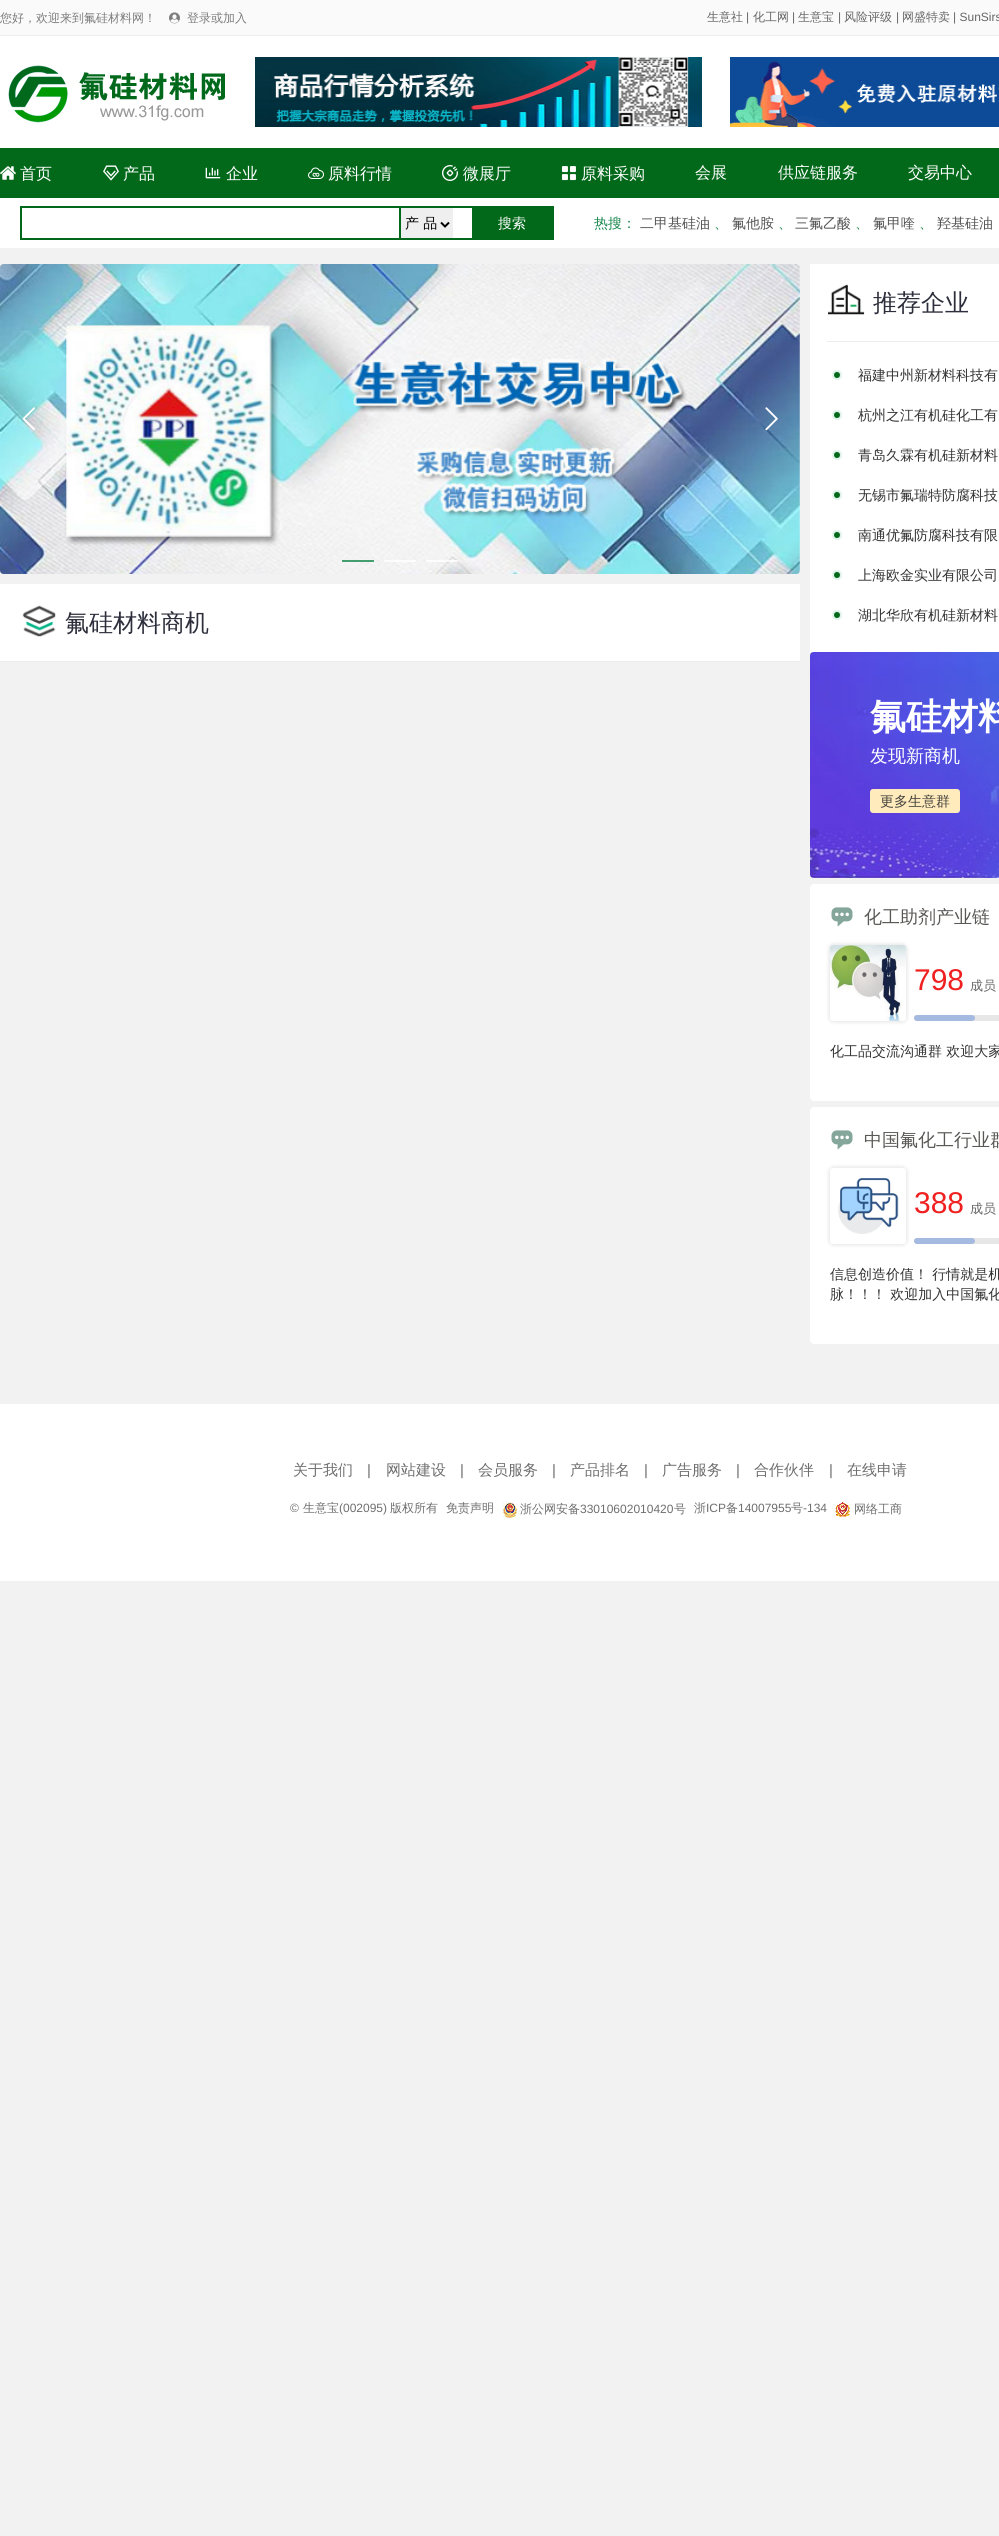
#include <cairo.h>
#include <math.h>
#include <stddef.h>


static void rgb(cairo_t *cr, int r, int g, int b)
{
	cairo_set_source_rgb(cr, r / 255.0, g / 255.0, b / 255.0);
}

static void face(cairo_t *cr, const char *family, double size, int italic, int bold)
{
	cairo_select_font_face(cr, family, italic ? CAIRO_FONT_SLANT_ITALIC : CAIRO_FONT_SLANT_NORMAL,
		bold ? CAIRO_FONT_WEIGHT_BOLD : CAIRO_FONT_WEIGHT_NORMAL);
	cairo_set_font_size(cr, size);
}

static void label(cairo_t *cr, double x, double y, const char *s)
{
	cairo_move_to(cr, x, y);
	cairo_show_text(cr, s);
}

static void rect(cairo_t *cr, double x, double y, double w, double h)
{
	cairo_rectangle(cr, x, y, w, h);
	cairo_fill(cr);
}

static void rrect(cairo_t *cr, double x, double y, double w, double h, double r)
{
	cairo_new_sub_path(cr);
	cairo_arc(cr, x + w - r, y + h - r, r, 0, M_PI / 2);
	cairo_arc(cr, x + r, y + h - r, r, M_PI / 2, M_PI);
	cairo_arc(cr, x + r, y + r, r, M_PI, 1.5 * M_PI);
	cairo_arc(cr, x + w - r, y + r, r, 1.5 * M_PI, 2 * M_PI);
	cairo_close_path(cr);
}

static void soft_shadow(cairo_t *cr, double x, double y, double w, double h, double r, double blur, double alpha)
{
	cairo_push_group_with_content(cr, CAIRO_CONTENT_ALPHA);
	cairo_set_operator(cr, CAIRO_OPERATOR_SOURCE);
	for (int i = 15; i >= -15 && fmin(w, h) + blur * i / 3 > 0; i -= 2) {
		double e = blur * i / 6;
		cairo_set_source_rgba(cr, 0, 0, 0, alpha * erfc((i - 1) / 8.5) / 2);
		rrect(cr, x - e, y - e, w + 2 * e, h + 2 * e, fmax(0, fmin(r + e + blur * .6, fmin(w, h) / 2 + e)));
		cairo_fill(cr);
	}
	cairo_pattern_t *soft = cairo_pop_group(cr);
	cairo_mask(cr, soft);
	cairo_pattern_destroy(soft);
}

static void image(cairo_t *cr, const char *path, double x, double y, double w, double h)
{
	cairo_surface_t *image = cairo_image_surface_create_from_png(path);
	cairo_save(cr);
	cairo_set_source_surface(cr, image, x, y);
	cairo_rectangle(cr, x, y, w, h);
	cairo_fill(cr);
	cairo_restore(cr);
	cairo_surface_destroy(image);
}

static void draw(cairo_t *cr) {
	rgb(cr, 242, 242, 242);
	cairo_paint(cr);
	rgb(cr, 250, 250, 250);
	rect(cr, 0, 0, 999, 35);
	rgb(cr, 238, 238, 238);
	rect(cr, 0, 35, 999, 1);
	face(cr, "WenQuanYi Zen Hei Medium", 12, 0, 0);
	rgb(cr, 125, 125, 125);
	label(cr, 0, 22, "您好，欢迎来到氟硅材料网！");
	image(cr, "image0.png", 169, 12, 11, 12);
	label(cr, 187, 22, "登录或加入");
	rgb(cr, 102, 102, 102);
	label(cr, 707, 21, "生意社");
	face(cr, "Liberation Sans", 12, 0, 0);
	label(cr, 746, 21, "|");
	face(cr, "WenQuanYi Zen Hei Medium", 12, 0, 0);
	label(cr, 753, 21, "化工网");
	face(cr, "Liberation Sans", 12, 0, 0);
	label(cr, 792, 21, "|");
	face(cr, "WenQuanYi Zen Hei Medium", 12, 0, 0);
	label(cr, 798, 21, "生意宝");
	face(cr, "Liberation Sans", 12, 0, 0);
	label(cr, 838, 21, "|");
	face(cr, "WenQuanYi Zen Hei Medium", 12, 0, 0);
	label(cr, 844, 21, "风险评级");
	face(cr, "Liberation Sans", 12, 0, 0);
	label(cr, 896, 21, "|");
	face(cr, "WenQuanYi Zen Hei Medium", 12, 0, 0);
	label(cr, 902, 21, "网盛特卖");
	face(cr, "Liberation Sans", 12, 0, 0);
	label(cr, 953, 21, "| SunSirs");
	rgb(cr, 255, 255, 255);
	rect(cr, 0, 36, 999, 112);
	image(cr, "image1.png", 8, 65, 217, 58);
	image(cr, "image2.png", 255, 57, 447, 70);
	image(cr, "image3.png", 730, 57, 269, 70);
	rgb(cr, 2, 105, 26);
	rect(cr, 0, 148, 999, 50);
	image(cr, "image4.png", 0, 166, 16, 14);
	face(cr, "WenQuanYi Zen Hei Medium", 16, 0, 0);
	rgb(cr, 255, 255, 255);
	label(cr, 20, 179, "首页");
	image(cr, "image5.png", 103, 165, 16, 16);
	label(cr, 123, 179, "产品");
	image(cr, "image6.png", 205, 167, 16, 12);
	label(cr, 226, 179, "企业");
	image(cr, "image7.png", 308, 167, 16, 12);
	label(cr, 328, 179, "原料行情");
	image(cr, "image8.png", 442, 165, 16, 16);
	label(cr, 463, 179, "微展厅");
	image(cr, "image9.png", 561, 166, 15, 15);
	label(cr, 581, 179, "原料采购");
	label(cr, 695, 178, "会展");
	label(cr, 778, 178, "供应链服务");
	label(cr, 908, 178, "交易中心");
	rect(cr, 0, 198, 999, 50);
	cairo_rectangle(cr, 21, 207, 532, 32);
	rgb(cr, 2, 105, 26);
	cairo_stroke(cr);
	rgb(cr, 239, 239, 239);
	rect(cr, 401, 208, 52, 30);
	rgb(cr, 2, 105, 26);
	rect(cr, 399, 208, 2, 32);
	cairo_new_path(cr);
	cairo_move_to(cr, 441, 222.5);
	cairo_line_to(cr, 445, 226.5);
	cairo_line_to(cr, 449, 222.5);
	rgb(cr, 0, 0, 0);
	cairo_stroke(cr);
	face(cr, "WenQuanYi Zen Hei Medium", 14, 0, 0);
	label(cr, 405, 228, "产 品");
	rgb(cr, 2, 105, 26);
	rect(cr, 472, 208, 80, 30);
	rgb(cr, 255, 255, 255);
	label(cr, 498, 228, "搜索");
	rgb(cr, 25, 136, 78);
	label(cr, 594, 228, "热搜：");
	rgb(cr, 83, 83, 83);
	label(cr, 640, 228, "二甲基硅油");
	rgb(cr, 25, 136, 78);
	label(cr, 714, 228, "、");
	rgb(cr, 83, 83, 83);
	label(cr, 732, 228, "氟他胺");
	rgb(cr, 25, 136, 78);
	label(cr, 778, 228, "、");
	rgb(cr, 83, 83, 83);
	label(cr, 795, 228, "三氟乙酸");
	rgb(cr, 25, 136, 78);
	label(cr, 855, 228, "、");
	rgb(cr, 83, 83, 83);
	label(cr, 873, 228, "氟甲喹");
	rgb(cr, 25, 136, 78);
	label(cr, 919, 228, "、");
	rgb(cr, 83, 83, 83);
	label(cr, 937, 228, "羟基硅油");
	image(cr, "image10.png", 0, 264, 800, 310);
	image(cr, "image11.png", 22, 407, 13, 24);
	image(cr, "image12.png", 765, 407, 13, 24);
	cairo_set_source_rgba(cr, 0.098, 0.533, 0.306, 0.8);
	rect(cr, 342, 560, 32, 2);
	cairo_set_source_rgba(cr, 1, 1, 1, 0.8);
	rect(cr, 384, 560, 32, 2);
	rect(cr, 426, 560, 32, 2);
	rgb(cr, 255, 255, 255);
	rect(cr, 810, 264, 189, 388);
	rgb(cr, 234, 238, 239);
	rect(cr, 827, 341, 172, 1);
	image(cr, "image13.png", 828, 284, 37, 31);
	face(cr, "WenQuanYi Zen Hei Medium", 24, 0, 0);
	rgb(cr, 44, 46, 59);
	label(cr, 873, 311, "推荐企业");
	rgb(cr, 225, 243, 236);
	cairo_new_path(cr);
	cairo_arc(cr, 837, 375, 5, 0, 2 * M_PI);
	cairo_fill(cr);
	face(cr, "WenQuanYi Zen Hei Medium", 14, 0, 0);
	rgb(cr, 51, 51, 51);
	label(cr, 858, 380, "福建中州新材料科技有");
	rgb(cr, 2, 105, 26);
	cairo_new_path(cr);
	cairo_arc(cr, 837, 375, 3, 0, 2 * M_PI);
	cairo_fill(cr);
	rgb(cr, 225, 243, 236);
	cairo_arc(cr, 837, 415, 5, 0, 2 * M_PI);
	cairo_fill(cr);
	rgb(cr, 51, 51, 51);
	label(cr, 858, 420, "杭州之江有机硅化工有");
	rgb(cr, 2, 105, 26);
	cairo_new_path(cr);
	cairo_arc(cr, 837, 415, 3, 0, 2 * M_PI);
	cairo_fill(cr);
	rgb(cr, 225, 243, 236);
	cairo_arc(cr, 837, 455, 5, 0, 2 * M_PI);
	cairo_fill(cr);
	rgb(cr, 51, 51, 51);
	label(cr, 858, 460, "青岛久霖有机硅新材料");
	rgb(cr, 2, 105, 26);
	cairo_new_path(cr);
	cairo_arc(cr, 837, 455, 3, 0, 2 * M_PI);
	cairo_fill(cr);
	rgb(cr, 225, 243, 236);
	cairo_arc(cr, 837, 495, 5, 0, 2 * M_PI);
	cairo_fill(cr);
	rgb(cr, 51, 51, 51);
	label(cr, 858, 500, "无锡市氟瑞特防腐科技");
	rgb(cr, 2, 105, 26);
	cairo_new_path(cr);
	cairo_arc(cr, 837, 495, 3, 0, 2 * M_PI);
	cairo_fill(cr);
	rgb(cr, 225, 243, 236);
	cairo_arc(cr, 837, 535, 5, 0, 2 * M_PI);
	cairo_fill(cr);
	rgb(cr, 51, 51, 51);
	label(cr, 858, 540, "南通优氟防腐科技有限");
	rgb(cr, 2, 105, 26);
	cairo_new_path(cr);
	cairo_arc(cr, 837, 535, 3, 0, 2 * M_PI);
	cairo_fill(cr);
	rgb(cr, 225, 243, 236);
	cairo_arc(cr, 837, 575, 5, 0, 2 * M_PI);
	cairo_fill(cr);
	rgb(cr, 51, 51, 51);
	label(cr, 858, 580, "上海欧金实业有限公司");
	rgb(cr, 2, 105, 26);
	cairo_new_path(cr);
	cairo_arc(cr, 837, 575, 3, 0, 2 * M_PI);
	cairo_fill(cr);
	rgb(cr, 225, 243, 236);
	cairo_arc(cr, 837, 615, 5, 0, 2 * M_PI);
	cairo_fill(cr);
	rgb(cr, 51, 51, 51);
	label(cr, 858, 620, "湖北华欣有机硅新材料");
	rgb(cr, 2, 105, 26);
	cairo_new_path(cr);
	cairo_arc(cr, 837, 615, 3, 0, 2 * M_PI);
	cairo_fill(cr);
	rgb(cr, 255, 255, 255);
	rect(cr, 0, 584, 800, 77);
	rgb(cr, 234, 238, 239);
	rect(cr, 0, 661, 800, 1);
	image(cr, "image14.png", 22, 605, 34, 32);
	face(cr, "WenQuanYi Zen Hei Medium", 24, 0, 0);
	rgb(cr, 44, 46, 59);
	label(cr, 65, 631, "氟硅材料商机");
	image(cr, "image15.png", 810, 652, 189, 226);
	face(cr, "WenQuanYi Zen Hei", 36, 0, 1);
	rgb(cr, 255, 255, 255);
	label(cr, 870, 729, "氟硅材料");
	face(cr, "WenQuanYi Zen Hei Medium", 18, 0, 0);
	label(cr, 870, 762, "发现新商机");
	rgb(cr, 255, 235, 187);
	rrect(cr, 870, 789, 90, 24, 3);
	cairo_fill(cr);
	face(cr, "WenQuanYi Zen Hei Medium", 14, 0, 0);
	rgb(cr, 68, 67, 63);
	label(cr, 880, 806, "更多生意群");
	rgb(cr, 255, 255, 255);
	rrect(cr, 810, 884, 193, 217, 4);
	cairo_fill(cr);
	image(cr, "image16.png", 831, 907, 22, 20);
	face(cr, "WenQuanYi Zen Hei Medium", 18, 0, 0);
	rgb(cr, 89, 88, 85);
	label(cr, 864, 923, "化工助剂产业链");
	rgb(cr, 0, 0, 0);
	soft_shadow(cr, 830, 945, 76, 76, 3, 2.5, 0.15);
	image(cr, "image17.png", 830, 945, 76, 76);
	face(cr, "Liberation Sans", 30, 0, 0);
	rgb(cr, 239, 32, 31);
	label(cr, 914, 990, "798");
	face(cr, "WenQuanYi Zen Hei Medium", 13, 0, 0);
	rgb(cr, 102, 102, 102);
	label(cr, 970, 990, "成员");
	rgb(cr, 231, 231, 231);
	rrect(cr, 914, 1015, 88, 6, 3);
	cairo_fill(cr);
	rgb(cr, 165, 186, 225);
	rrect(cr, 914, 1015, 61, 6, 3);
	cairo_fill(cr);
	face(cr, "WenQuanYi Zen Hei Medium", 14, 0, 0);
	rgb(cr, 51, 51, 51);
	label(cr, 830, 1056, "化工品交流沟通群 欢迎大家");
	rgb(cr, 255, 255, 255);
	rrect(cr, 810, 1107, 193, 237, 4);
	cairo_fill(cr);
	image(cr, "image16.png", 831, 1130, 22, 20);
	face(cr, "WenQuanYi Zen Hei Medium", 18, 0, 0);
	rgb(cr, 89, 88, 85);
	label(cr, 864, 1146, "中国氟化工行业群");
	cairo_save(cr);
	cairo_set_fill_rule(cr, CAIRO_FILL_RULE_EVEN_ODD);
	cairo_new_path(cr);
	cairo_move_to(cr, 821, 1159);
	cairo_line_to(cr, 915, 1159);
	cairo_line_to(cr, 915, 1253);
	cairo_line_to(cr, 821, 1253);
	cairo_close_path(cr);
	cairo_move_to(cr, 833, 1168);
	cairo_line_to(cr, 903, 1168);
	cairo_curve_to(cr, 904.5, 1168, 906, 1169.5, 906, 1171);
	cairo_line_to(cr, 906, 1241);
	cairo_curve_to(cr, 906, 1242.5, 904.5, 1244, 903, 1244);
	cairo_line_to(cr, 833, 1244);
	cairo_curve_to(cr, 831.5, 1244, 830, 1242.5, 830, 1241);
	cairo_line_to(cr, 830, 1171);
	cairo_curve_to(cr, 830, 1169.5, 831.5, 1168, 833, 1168);
	cairo_close_path(cr);
	cairo_clip(cr);
	rgb(cr, 0, 0, 0);
	soft_shadow(cr, 830, 1168, 76, 76, 3, 2.5, 0.15);
	cairo_restore(cr);
	image(cr, "image18.png", 838, 1178, 61, 56);
	face(cr, "Liberation Sans", 30, 0, 0);
	rgb(cr, 239, 32, 31);
	label(cr, 914, 1213, "388");
	face(cr, "WenQuanYi Zen Hei Medium", 13, 0, 0);
	rgb(cr, 102, 102, 102);
	label(cr, 970, 1213, "成员");
	rgb(cr, 231, 231, 231);
	rrect(cr, 914, 1238, 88, 6, 3);
	cairo_fill(cr);
	rgb(cr, 165, 186, 225);
	rrect(cr, 914, 1238, 61, 6, 3);
	cairo_fill(cr);
	face(cr, "WenQuanYi Zen Hei Medium", 14, 0, 0);
	rgb(cr, 51, 51, 51);
	label(cr, 830, 1279, "信息创造价值！ 行情就是机");
	label(cr, 830, 1299, "脉！！！ 欢迎加入中国氟化");
	rgb(cr, 255, 255, 255);
	rect(cr, 0, 1404, 999, 177);
	face(cr, "WenQuanYi Zen Hei Medium", 15, 0, 0);
	rgb(cr, 110, 110, 110);
	label(cr, 293, 1475, "关于我们");
	face(cr, "Liberation Sans", 15, 0, 0);
	label(cr, 367, 1475, "|");
	face(cr, "WenQuanYi Zen Hei Medium", 15, 0, 0);
	label(cr, 386, 1475, "网站建设");
	face(cr, "Liberation Sans", 15, 0, 0);
	label(cr, 460, 1475, "|");
	face(cr, "WenQuanYi Zen Hei Medium", 15, 0, 0);
	label(cr, 478, 1475, "会员服务");
	face(cr, "Liberation Sans", 15, 0, 0);
	label(cr, 552, 1475, "|");
	face(cr, "WenQuanYi Zen Hei Medium", 15, 0, 0);
	label(cr, 570, 1475, "产品排名");
	face(cr, "Liberation Sans", 15, 0, 0);
	label(cr, 644, 1475, "|");
	face(cr, "WenQuanYi Zen Hei Medium", 15, 0, 0);
	label(cr, 662, 1475, "广告服务");
	face(cr, "Liberation Sans", 15, 0, 0);
	label(cr, 736, 1475, "|");
	face(cr, "WenQuanYi Zen Hei Medium", 15, 0, 0);
	label(cr, 754, 1475, "合作伙伴");
	face(cr, "Liberation Sans", 15, 0, 0);
	label(cr, 829, 1475, "|");
	face(cr, "WenQuanYi Zen Hei Medium", 15, 0, 0);
	label(cr, 847, 1475, "在线申请");
	face(cr, "Liberation Sans", 12, 0, 0);
	label(cr, 290, 1512, "©");
	face(cr, "WenQuanYi Zen Hei Medium", 12, 0, 0);
	label(cr, 303, 1512, "生意宝");
	face(cr, "Liberation Sans", 12, 0, 0);
	label(cr, 339, 1512, "(002095)");
	face(cr, "WenQuanYi Zen Hei Medium", 12, 0, 0);
	label(cr, 390, 1512, "版权所有");
	label(cr, 446, 1512, "免责声明");
	image(cr, "image19.png", 502, 1502, 15, 16);
	label(cr, 520, 1513, "浙公网安备");
	face(cr, "Liberation Sans", 12, 0, 0);
	label(cr, 580, 1513, "33010602010420");
	face(cr, "WenQuanYi Zen Hei Medium", 12, 0, 0);
	label(cr, 674, 1513, "号");
	label(cr, 694, 1512, "浙");
	face(cr, "Liberation Sans", 12, 0, 0);
	label(cr, 706, 1512, "ICP");
	face(cr, "WenQuanYi Zen Hei Medium", 12, 0, 0);
	label(cr, 726, 1512, "备");
	face(cr, "Liberation Sans", 12, 0, 0);
	label(cr, 738, 1512, "14007955");
	face(cr, "WenQuanYi Zen Hei Medium", 12, 0, 0);
	label(cr, 791, 1512, "号");
	face(cr, "Liberation Sans", 12, 0, 0);
	label(cr, 803, 1512, "-134");
	image(cr, "image20.png", 835, 1502, 15, 15);
	face(cr, "WenQuanYi Zen Hei Medium", 12, 0, 0);
	label(cr, 854, 1513, "网络工商");
}

int main(void) {
	cairo_surface_t *surface = cairo_image_surface_create(CAIRO_FORMAT_RGB24, 999, 2536);
	cairo_t *cr = cairo_create(surface);
	cairo_font_options_t *options = cairo_font_options_create();
	cairo_font_options_set_hint_metrics(options, CAIRO_HINT_METRICS_OFF);
	cairo_font_options_set_hint_style(options, CAIRO_HINT_STYLE_NONE);
	cairo_set_font_options(cr, options);
	cairo_set_miter_limit(cr, 4);
	draw(cr);
	cairo_surface_write_to_png(surface, "render.png");
	cairo_font_options_destroy(options);
	cairo_destroy(cr);
	cairo_surface_destroy(surface);
	return 0;
}
